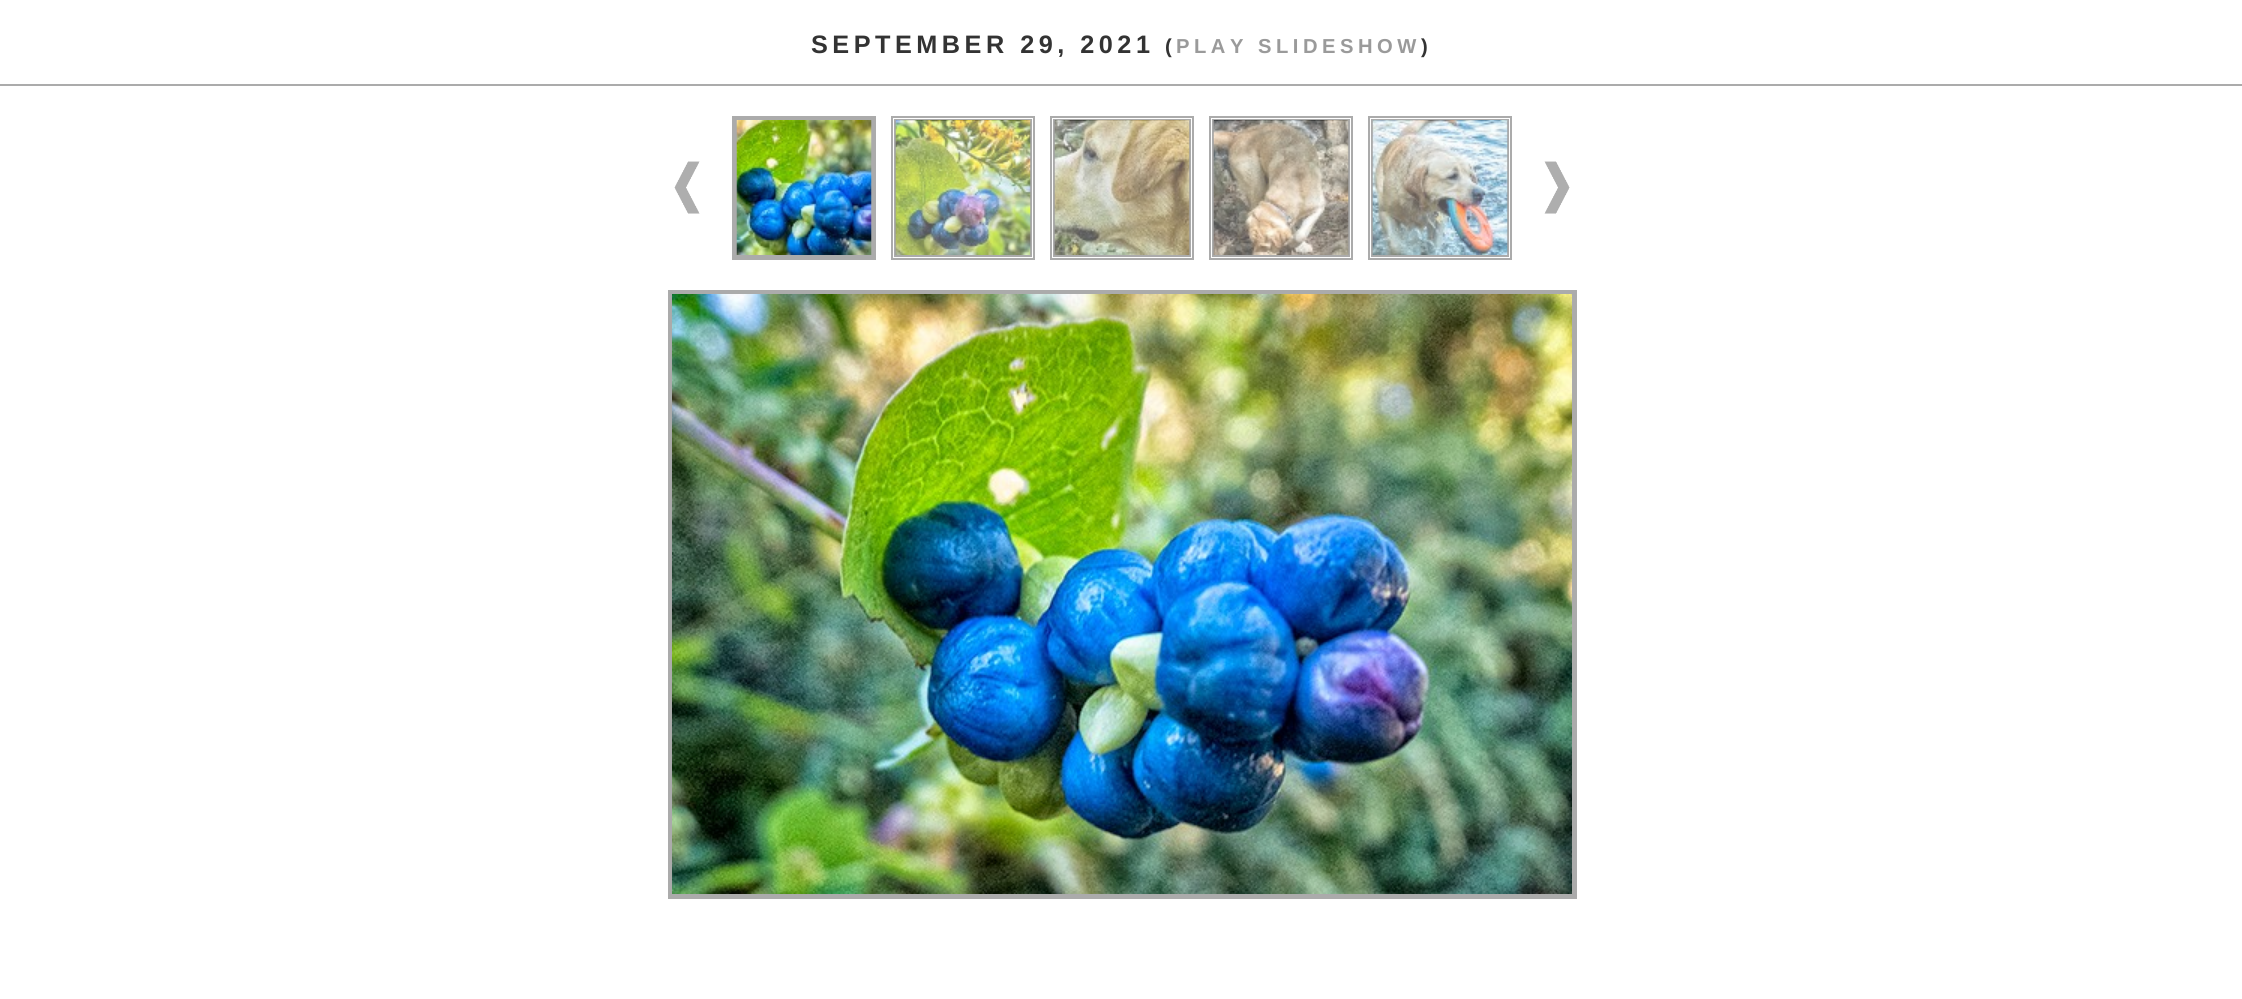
#include <cairo.h>
#include <math.h>
#include <stddef.h>


static void rgb(cairo_t *cr, int r, int g, int b)
{
	cairo_set_source_rgb(cr, r / 255.0, g / 255.0, b / 255.0);
}

static void face(cairo_t *cr, const char *family, double size, int italic, int bold)
{
	cairo_select_font_face(cr, family, italic ? CAIRO_FONT_SLANT_ITALIC : CAIRO_FONT_SLANT_NORMAL,
		bold ? CAIRO_FONT_WEIGHT_BOLD : CAIRO_FONT_WEIGHT_NORMAL);
	cairo_set_font_size(cr, size);
}

static void tracked(cairo_t *cr, double x, double y, const char *s, double letter, double word)
{
	cairo_move_to(cr, x, y);
	while (*s) {
		char ch[5] = {0};
		int n = 0;
		do ch[n++] = *s++; while ((*s & 0xC0) == 0x80);
		cairo_show_text(cr, ch);
		cairo_rel_move_to(cr, letter + word * (*ch == ' '), 0);
	}
}

static void rect(cairo_t *cr, double x, double y, double w, double h)
{
	cairo_rectangle(cr, x, y, w, h);
	cairo_fill(cr);
}

static void image(cairo_t *cr, const char *path, double x, double y, double w, double h)
{
	cairo_surface_t *image = cairo_image_surface_create_from_png(path);
	cairo_save(cr);
	cairo_set_source_surface(cr, image, x, y);
	cairo_rectangle(cr, x, y, w, h);
	cairo_fill(cr);
	cairo_restore(cr);
	cairo_surface_destroy(image);
}

static void draw(cairo_t *cr) {
	rgb(cr, 255, 255, 255);
	cairo_paint(cr);
	rgb(cr, 171, 171, 171);
	rect(cr, 0, 84, 2242, 2);
	face(cr, "Liberation Sans", 25.25, 0, 1);
	rgb(cr, 51, 51, 51);
	tracked(cr, 811, 53, "SEPTEMBER 29, 2021", 4.5, 0);
	face(cr, "Liberation Sans", 20.2, 0, 1);
	tracked(cr, 1165, 53, "(", 4.5, 0);
	rgb(cr, 154, 154, 154);
	tracked(cr, 1176, 53, "PLAY SLIDESHOW", 4.5, 0);
	rgb(cr, 51, 51, 51);
	tracked(cr, 1421, 53, ")", 4.5, 0);
	image(cr, "image0.png", 674, 161, 26, 53);
	cairo_rectangle(cr, 734.5, 118.5, 139, 139);
	rgb(cr, 171, 171, 171);
	cairo_set_line_width(cr, 5);
	cairo_stroke(cr);
	image(cr, "image1.png", 736, 120, 136, 135);
	cairo_rectangle(cr, 892, 117, 142, 142);
	cairo_set_line_width(cr, 2);
	cairo_stroke(cr);
	cairo_rectangle(cr, 895, 120, 136, 136);
	cairo_stroke(cr);
	image(cr, "image2.png", 895, 120, 136, 135);
	cairo_rectangle(cr, 1051, 117, 142, 142);
	cairo_stroke(cr);
	cairo_rectangle(cr, 1054, 120, 136, 136);
	cairo_stroke(cr);
	image(cr, "image3.png", 1054, 120, 136, 135);
	cairo_rectangle(cr, 1210, 117, 142, 142);
	cairo_stroke(cr);
	cairo_rectangle(cr, 1213, 120, 136, 136);
	cairo_stroke(cr);
	image(cr, "image4.png", 1213, 120, 136, 135);
	cairo_rectangle(cr, 1369, 117, 142, 142);
	cairo_stroke(cr);
	cairo_rectangle(cr, 1372, 120, 136, 136);
	cairo_stroke(cr);
	image(cr, "image5.png", 1372, 120, 136, 135);
	image(cr, "image6.png", 1544, 161, 26, 53);
	cairo_rectangle(cr, 670.5, 292.5, 904, 604);
	cairo_set_line_width(cr, 5);
	cairo_stroke(cr);
	image(cr, "image7.png", 672, 294, 900, 600);
}

int main(void) {
	cairo_surface_t *surface = cairo_image_surface_create(CAIRO_FORMAT_RGB24, 2242, 999);
	cairo_t *cr = cairo_create(surface);
	cairo_font_options_t *options = cairo_font_options_create();
	cairo_font_options_set_hint_metrics(options, CAIRO_HINT_METRICS_OFF);
	cairo_font_options_set_hint_style(options, CAIRO_HINT_STYLE_NONE);
	cairo_set_font_options(cr, options);
	cairo_set_miter_limit(cr, 4);
	draw(cr);
	cairo_surface_write_to_png(surface, "render.png");
	cairo_font_options_destroy(options);
	cairo_destroy(cr);
	cairo_surface_destroy(surface);
	return 0;
}
